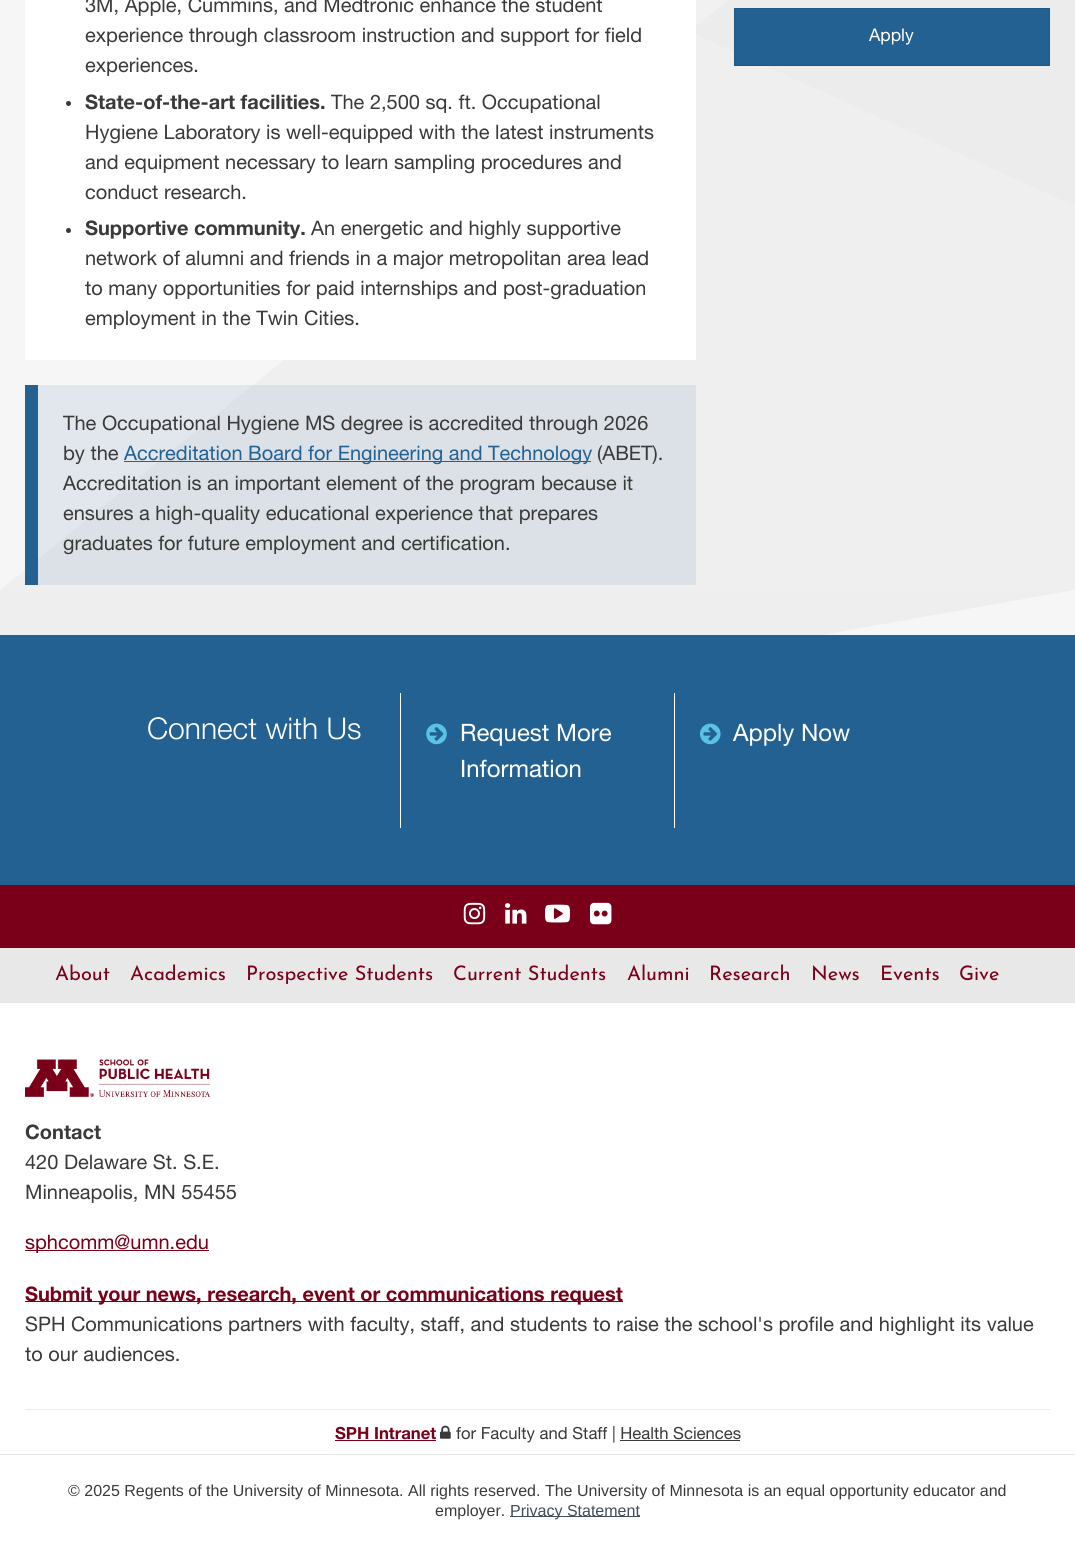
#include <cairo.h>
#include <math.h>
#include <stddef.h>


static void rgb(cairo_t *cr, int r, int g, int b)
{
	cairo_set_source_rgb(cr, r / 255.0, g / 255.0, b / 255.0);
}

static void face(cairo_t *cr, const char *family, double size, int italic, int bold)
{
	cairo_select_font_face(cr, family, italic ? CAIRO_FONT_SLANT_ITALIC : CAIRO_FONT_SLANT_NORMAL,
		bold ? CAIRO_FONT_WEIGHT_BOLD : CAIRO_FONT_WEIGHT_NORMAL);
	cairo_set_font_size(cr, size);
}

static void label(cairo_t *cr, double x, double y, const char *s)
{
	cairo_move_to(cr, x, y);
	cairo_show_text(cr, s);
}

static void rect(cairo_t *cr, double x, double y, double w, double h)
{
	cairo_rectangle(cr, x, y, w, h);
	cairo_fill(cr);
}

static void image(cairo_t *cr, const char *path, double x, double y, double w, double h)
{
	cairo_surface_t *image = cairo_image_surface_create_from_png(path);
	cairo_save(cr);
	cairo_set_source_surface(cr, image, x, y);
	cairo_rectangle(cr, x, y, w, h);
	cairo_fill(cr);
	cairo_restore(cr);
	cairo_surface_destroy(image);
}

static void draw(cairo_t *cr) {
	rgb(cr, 255, 255, 255);
	cairo_paint(cr);
	rgb(cr, 246, 246, 246);
	rect(cr, 0, 0, 1075, 635);
	rgb(cr, 239, 239, 239);
	cairo_new_path(cr);
	cairo_move_to(cr, 1075, -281);
	cairo_line_to(cr, 1075, 590);
	cairo_line_to(cr, 0, 590);
	cairo_fill(cr);
	rgb(cr, 238, 238, 238);
	cairo_new_path(cr);
	cairo_move_to(cr, -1, 782);
	cairo_line_to(cr, -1, 590);
	cairo_line_to(cr, 1074, 590);
	cairo_fill(cr);
	cairo_set_source_rgba(cr, 0.898, 0.894, 0.898, 0.3);
	cairo_new_path(cr);
	cairo_move_to(cr, 1075, 206);
	cairo_line_to(cr, 1075, -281);
	cairo_line_to(cr, -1, -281);
	cairo_fill(cr);
	rgb(cr, 255, 255, 255);
	rect(cr, 25, 0, 671, 360);
	face(cr, "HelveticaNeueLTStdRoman", 20, 0, 0);
	rgb(cr, 58, 58, 58);
	label(cr, 85, 12, "3M, Apple, Cummins, and Medtronic enhance the student");
	label(cr, 85, 42, "experience through classroom instruction and support for field");
	label(cr, 85, 72, "experiences.");
	cairo_new_path(cr);
	cairo_arc(cr, 68.5, 103.5, 2.5, 0, 2 * M_PI);
	cairo_fill(cr);
	face(cr, "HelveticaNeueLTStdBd", 20, 0, 0);
	label(cr, 85, 109, "State-of-the-art facilities.");
	face(cr, "HelveticaNeueLTStdRoman", 20, 0, 0);
	label(cr, 331, 109, "The 2,500 sq. ft. Occupational");
	label(cr, 85, 139, "Hygiene Laboratory is well-equipped with the latest instruments");
	label(cr, 85, 169, "and equipment necessary to learn sampling procedures and");
	label(cr, 85, 199, "conduct research.");
	cairo_new_path(cr);
	cairo_arc(cr, 68.5, 230.5, 2.5, 0, 2 * M_PI);
	cairo_fill(cr);
	face(cr, "HelveticaNeueLTStdBd", 20, 0, 0);
	label(cr, 85, 235, "Supportive community.");
	face(cr, "HelveticaNeueLTStdRoman", 20, 0, 0);
	label(cr, 311, 235, "An energetic and highly supportive");
	label(cr, 85, 265, "network of alumni and friends in a major metropolitan area lead");
	label(cr, 85, 295, "to many opportunities for paid internships and post-graduation");
	label(cr, 85, 325, "employment in the Twin Cities.");
	cairo_set_source_rgba(cr, 0.137, 0.38, 0.573, 0.1);
	rect(cr, 38, 385, 658, 200);
	rgb(cr, 35, 97, 146);
	rect(cr, 25, 385, 13, 200);
	rgb(cr, 58, 58, 58);
	label(cr, 63, 430, "The Occupational Hygiene MS degree is accredited through 2026");
	label(cr, 63, 460, "by the");
	rgb(cr, 35, 97, 146);
	rect(cr, 124, 461, 467, 1);
	label(cr, 124, 460, "Accreditation Board for Engineering and Technology");
	rgb(cr, 58, 58, 58);
	label(cr, 597, 460, "(ABET).");
	label(cr, 63, 490, "Accreditation is an important element of the program because it");
	label(cr, 63, 520, "ensures a high-quality educational experience that prepares");
	label(cr, 63, 550, "graduates for future employment and certification.");
	rgb(cr, 35, 97, 146);
	cairo_rectangle(cr, 734.5, 8.5, 315, 57);
	cairo_fill_preserve(cr);
	rgb(cr, 32, 87, 131);
	cairo_set_line_width(cr, 1);
	cairo_stroke(cr);
	face(cr, "HelveticaNeueLTStdRoman", 17.5, 0, 0);
	rgb(cr, 255, 255, 255);
	label(cr, 869, 41, "Apply");
	rgb(cr, 35, 97, 146);
	rect(cr, 0, 635, 1075, 250);
	rgb(cr, 255, 255, 255);
	rect(cr, 400, 693, 1, 135);
	face(cr, "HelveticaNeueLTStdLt", 30, 0, 0);
	label(cr, 147, 739, "Connect with Us");
	rect(cr, 674, 693, 1, 135);
	image(cr, "image0.png", 426, 723, 21, 22);
	face(cr, "HelveticaNeueLTStdRoman", 24, 0, 0);
	label(cr, 460, 741, "Request More");
	label(cr, 460, 777, "Information");
	image(cr, "image1.png", 700, 723, 21, 22);
	label(cr, 733, 741, "Apply Now");
	rgb(cr, 122, 0, 25);
	rect(cr, 0, 885, 1075, 63);
	image(cr, "image2.png", 463, 902, 23, 23);
	image(cr, "image3.png", 505, 903, 22, 21);
	image(cr, "image4.png", 545, 904, 25, 19);
	image(cr, "image5.png", 590, 902, 22, 23);
	rgb(cr, 232, 232, 233);
	rect(cr, 0, 948, 1075, 55);
	face(cr, "Josefin Sans", 20, 0, 0);
	rgb(cr, 122, 0, 25);
	label(cr, 55, 980, "About");
	label(cr, 130, 980, "Academics");
	label(cr, 246, 980, "Prospective Students");
	label(cr, 453, 980, "Current Students");
	label(cr, 627, 980, "Alumni");
	label(cr, 709, 980, "Research");
	label(cr, 811, 980, "News");
	label(cr, 880, 980, "Events");
	label(cr, 959, 980, "Give");
	image(cr, "image6.png", 25, 1059, 185, 38);
	face(cr, "HelveticaNeueLTStdBd", 20, 0, 0);
	rgb(cr, 58, 58, 58);
	label(cr, 25, 1139, "Contact");
	face(cr, "HelveticaNeueLTStdRoman", 20, 0, 0);
	label(cr, 25, 1169, "420 Delaware St. S.E.");
	label(cr, 25, 1199, "Minneapolis, MN 55455");
	rgb(cr, 122, 0, 25);
	rect(cr, 25, 1250, 184, 1);
	label(cr, 25, 1249, "sphcomm@umn.edu");
	rect(cr, 25, 1301, 598, 1);
	face(cr, "HelveticaNeueLTStdBd", 20, 0, 0);
	label(cr, 25, 1301, "Submit your news, research, event or communications request");
	face(cr, "HelveticaNeueLTStdRoman", 20, 0, 0);
	rgb(cr, 58, 58, 58);
	label(cr, 25, 1331, "SPH Communications partners with faculty, staff, and students to raise the school's profile and highlight its value");
	label(cr, 25, 1361, "to our audiences.");
	rgb(cr, 235, 235, 235);
	rect(cr, 25, 1409, 1025, 1);
	face(cr, "HelveticaNeueLTStdBd", 16.7, 0, 0);
	rgb(cr, 122, 0, 25);
	label(cr, 335, 1439, "SPH Intranet");
	rect(cr, 335, 1440, 101, 1);
	image(cr, "image7.png", 440, 1425, 11, 14);
	face(cr, "HelveticaNeueLTStdRoman", 16.7, 0, 0);
	rgb(cr, 58, 58, 58);
	label(cr, 456, 1439, "for Faculty and Staff | Health Sciences");
	rect(cr, 620, 1440, 120, 1);
	rgb(cr, 232, 232, 233);
	rect(cr, 0, 1454, 1075, 1);
	face(cr, "Liberation Sans", 16, 0, 0);
	rgb(cr, 58, 58, 58);
	label(cr, 68, 1496, "© 2025 Regents of the University of Minnesota. All rights reserved. The University of Minnesota is an equal opportunity educator and");
	label(cr, 435, 1516, "employer.");
	rgb(cr, 64, 77, 91);
	rect(cr, 510, 1516, 130, 1);
	label(cr, 510, 1516, "Privacy Statement");
}

int main(void) {
	cairo_surface_t *surface = cairo_image_surface_create(CAIRO_FORMAT_RGB24, 1075, 1545);
	cairo_t *cr = cairo_create(surface);
	cairo_font_options_t *options = cairo_font_options_create();
	cairo_font_options_set_hint_metrics(options, CAIRO_HINT_METRICS_OFF);
	cairo_font_options_set_hint_style(options, CAIRO_HINT_STYLE_NONE);
	cairo_set_font_options(cr, options);
	cairo_set_miter_limit(cr, 4);
	draw(cr);
	cairo_surface_write_to_png(surface, "render.png");
	cairo_font_options_destroy(options);
	cairo_destroy(cr);
	cairo_surface_destroy(surface);
	return 0;
}
